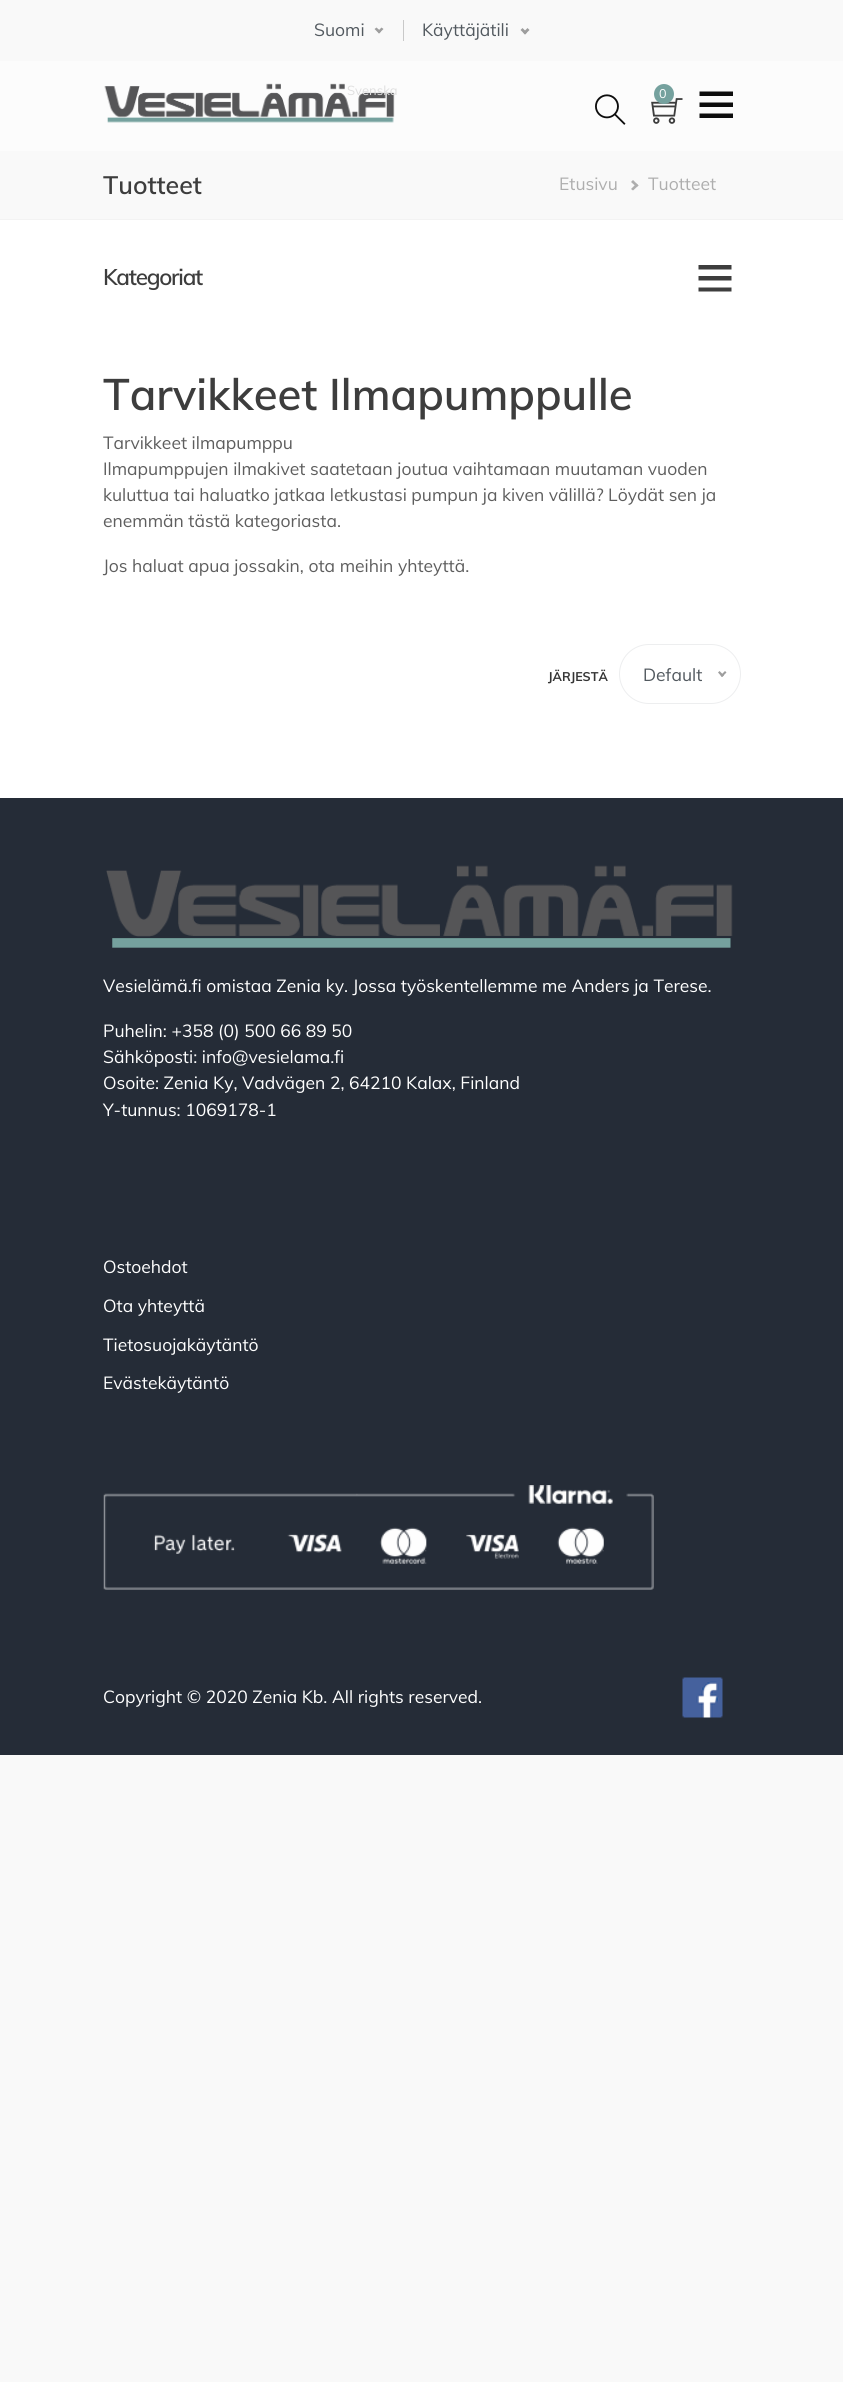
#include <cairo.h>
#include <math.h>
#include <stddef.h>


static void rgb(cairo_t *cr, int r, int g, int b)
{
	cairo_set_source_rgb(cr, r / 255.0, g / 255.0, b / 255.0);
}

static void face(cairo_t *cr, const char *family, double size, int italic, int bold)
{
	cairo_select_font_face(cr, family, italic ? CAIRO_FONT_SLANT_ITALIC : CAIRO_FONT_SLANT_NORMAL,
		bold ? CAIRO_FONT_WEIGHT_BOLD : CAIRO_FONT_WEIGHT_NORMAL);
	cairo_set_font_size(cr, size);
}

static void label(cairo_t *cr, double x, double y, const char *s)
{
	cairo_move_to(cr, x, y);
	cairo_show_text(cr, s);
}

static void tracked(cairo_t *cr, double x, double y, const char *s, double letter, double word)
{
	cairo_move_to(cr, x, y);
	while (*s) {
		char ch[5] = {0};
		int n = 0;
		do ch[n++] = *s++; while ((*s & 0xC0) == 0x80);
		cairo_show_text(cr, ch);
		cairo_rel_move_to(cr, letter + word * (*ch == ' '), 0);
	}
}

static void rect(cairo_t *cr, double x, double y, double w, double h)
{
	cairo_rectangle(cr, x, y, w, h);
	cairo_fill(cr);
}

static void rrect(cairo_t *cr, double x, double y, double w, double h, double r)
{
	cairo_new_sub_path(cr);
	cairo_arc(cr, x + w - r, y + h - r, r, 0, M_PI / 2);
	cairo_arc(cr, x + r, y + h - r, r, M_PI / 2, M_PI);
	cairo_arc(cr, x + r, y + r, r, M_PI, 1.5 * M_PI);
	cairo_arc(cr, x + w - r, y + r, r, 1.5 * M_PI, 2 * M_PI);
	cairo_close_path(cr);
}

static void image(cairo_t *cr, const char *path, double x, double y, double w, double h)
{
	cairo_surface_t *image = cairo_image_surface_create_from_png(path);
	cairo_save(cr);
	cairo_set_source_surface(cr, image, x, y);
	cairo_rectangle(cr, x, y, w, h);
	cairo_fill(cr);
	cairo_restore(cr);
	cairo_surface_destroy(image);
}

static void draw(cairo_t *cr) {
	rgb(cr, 249, 249, 249);
	cairo_paint(cr);
	rgb(cr, 255, 255, 255);
	rect(cr, 0, 220, 843, 578);
	rgb(cr, 252, 252, 252);
	rect(cr, 0, 61, 843, 90);
	rgb(cr, 201, 201, 201);
	rect(cr, 403, 20, 1, 21);
	face(cr, "Muli", 17.5, 0, 0);
	rgb(cr, 82, 89, 95);
	label(cr, 314, 36, "Suomi");
	rgb(cr, 158, 158, 158);
	cairo_new_path(cr);
	cairo_move_to(cr, 381.5, 27.5);
	cairo_line_to(cr, 383.5, 29);
	cairo_line_to(cr, 379, 33.5);
	cairo_line_to(cr, 377.5, 31.5);
	cairo_close_path(cr);
	cairo_fill(cr);
	cairo_new_path(cr);
	cairo_move_to(cr, 376.5, 27.5);
	cairo_line_to(cr, 381, 31.5);
	cairo_line_to(cr, 379, 33.5);
	cairo_line_to(cr, 374.5, 29);
	cairo_close_path(cr);
	cairo_fill(cr);
	image(cr, "image0.png", 104, 83, 291, 40);
	face(cr, "Muli", 13, 0, 0);
	rgb(cr, 223, 223, 223);
	label(cr, 347, 95, "Svenska");
	face(cr, "Muli", 17.5, 0, 0);
	rgb(cr, 82, 89, 95);
	label(cr, 422, 36, "Käyttäjätili");
	rgb(cr, 158, 158, 158);
	cairo_new_path(cr);
	cairo_move_to(cr, 527.5, 28);
	cairo_line_to(cr, 529.5, 30);
	cairo_line_to(cr, 525, 34.5);
	cairo_line_to(cr, 523, 32.5);
	cairo_close_path(cr);
	cairo_fill(cr);
	cairo_new_path(cr);
	cairo_move_to(cr, 522.5, 28);
	cairo_line_to(cr, 527, 32.5);
	cairo_line_to(cr, 525, 34.5);
	cairo_line_to(cr, 520.5, 30);
	cairo_close_path(cr);
	cairo_fill(cr);
	image(cr, "image1.png", 595, 94, 31, 31);
	image(cr, "image2.png", 651, 98, 32, 26);
	rgb(cr, 117, 161, 158);
	cairo_arc(cr, 664, 94, 10, 0, 2 * M_PI);
	cairo_fill(cr);
	face(cr, "Muli", 12.5, 0, 0);
	rgb(cr, 255, 255, 255);
	label(cr, 659, 98, "0");
	rgb(cr, 13, 13, 13);
	cairo_new_path(cr);
	cairo_move_to(cr, 733, 91.5);
	cairo_line_to(cr, 733, 96);
	cairo_line_to(cr, 699.5, 96);
	cairo_line_to(cr, 699.5, 91.5);
	cairo_close_path(cr);
	cairo_move_to(cr, 699.5, 107);
	cairo_line_to(cr, 733, 107);
	cairo_line_to(cr, 733, 102.5);
	cairo_line_to(cr, 699.5, 102.5);
	cairo_close_path(cr);
	cairo_move_to(cr, 699.5, 118);
	cairo_line_to(cr, 733, 118);
	cairo_line_to(cr, 733, 113.5);
	cairo_line_to(cr, 699.5, 113.5);
	cairo_close_path(cr);
	cairo_fill(cr);
	rgb(cr, 243, 243, 243);
	rect(cr, 0, 219, 843, 1);
	face(cr, "Muli SemiBold", 25, 0, 0);
	rgb(cr, 61, 61, 61);
	label(cr, 103, 194, "Tuotteet");
	face(cr, "Muli", 17.5, 0, 0);
	rgb(cr, 174, 174, 174);
	label(cr, 559, 190, "Etusivu");
	cairo_new_path(cr);
	cairo_move_to(cr, 631, 182);
	cairo_line_to(cr, 633, 180);
	cairo_line_to(cr, 638.5, 185.5);
	cairo_line_to(cr, 636.5, 187);
	cairo_close_path(cr);
	cairo_fill(cr);
	cairo_new_path(cr);
	cairo_move_to(cr, 631, 189);
	cairo_line_to(cr, 636.5, 183.5);
	cairo_line_to(cr, 638.5, 185.5);
	cairo_line_to(cr, 633, 190.5);
	cairo_close_path(cr);
	cairo_fill(cr);
	label(cr, 648, 190, "Tuotteet");
	face(cr, "Muli SemiBold", 22.5, 0, 0);
	rgb(cr, 61, 61, 61);
	tracked(cr, 103, 285, "Kategoriat", -1.25, 0);
	cairo_new_path(cr);
	cairo_move_to(cr, 731.5, 265);
	cairo_line_to(cr, 731.5, 269.5);
	cairo_line_to(cr, 698.5, 269.5);
	cairo_line_to(cr, 698.5, 265);
	cairo_close_path(cr);
	cairo_move_to(cr, 698.5, 280.5);
	cairo_line_to(cr, 731.5, 280.5);
	cairo_line_to(cr, 731.5, 276);
	cairo_line_to(cr, 698.5, 276);
	cairo_close_path(cr);
	cairo_move_to(cr, 698.5, 291.5);
	cairo_line_to(cr, 731.5, 291.5);
	cairo_line_to(cr, 731.5, 287.5);
	cairo_line_to(cr, 698.5, 287.5);
	cairo_close_path(cr);
	cairo_fill(cr);
	face(cr, "Muli SemiBold", 43.75, 0, 0);
	label(cr, 103, 410, "Tarvikkeet Ilmapumppulle");
	face(cr, "Muli", 17.5, 0, 0);
	rgb(cr, 94, 94, 94);
	label(cr, 103, 449, "Tarvikkeet ilmapumppu");
	label(cr, 103, 475, "Ilmapumppujen ilmakivet saatetaan joutua vaihtamaan muutaman vuoden");
	label(cr, 103, 501, "kuluttua tai haluatko jatkaa letkustasi pumpun ja kiven välillä? Löydät sen ja");
	label(cr, 103, 527, "enemmän tästä kategoriasta.");
	label(cr, 103, 572, "Jos haluat apua jossakin, ota meihin yhteyttä.");
	face(cr, "Muli", 12.5, 0, 1);
	rgb(cr, 53, 53, 53);
	label(cr, 548, 681, "JÄRJESTÄ");
	rrect(cr, 619.5, 644.5, 121, 59, 29.5);
	rgb(cr, 237, 238, 239);
	cairo_set_line_width(cr, 1);
	cairo_stroke(cr);
	face(cr, "Muli", 17.5, 0, 0);
	rgb(cr, 82, 89, 95);
	label(cr, 643, 681, "Default");
	rgb(cr, 158, 158, 158);
	cairo_new_path(cr);
	cairo_move_to(cr, 725, 671);
	cairo_line_to(cr, 726.5, 672.5);
	cairo_line_to(cr, 722, 677);
	cairo_line_to(cr, 720.5, 675.5);
	cairo_close_path(cr);
	cairo_fill(cr);
	cairo_new_path(cr);
	cairo_move_to(cr, 719.5, 671);
	cairo_line_to(cr, 724, 675.5);
	cairo_line_to(cr, 722, 677);
	cairo_line_to(cr, 718, 672.5);
	cairo_close_path(cr);
	cairo_fill(cr);
	rgb(cr, 37, 44, 55);
	rect(cr, 0, 798, 843, 957);
	image(cr, "image3.png", 106, 865, 627, 83);
	rgb(cr, 255, 255, 255);
	label(cr, 103, 992, "Vesielämä.fi omistaa Zenia ky. Jossa työskentellemme me Anders ja Terese.");
	label(cr, 103, 1037, "Puhelin: +358 (0) 500 66 89 50");
	label(cr, 103, 1063, "Sähköposti: info@vesielama.fi");
	label(cr, 103, 1089, "Osoite: Zenia Ky, Vadvägen 2, 64210 Kalax, Finland");
	label(cr, 103, 1116, "Y-tunnus: 1069178-1");
	label(cr, 103, 1273, "Ostoehdot");
	label(cr, 103, 1312, "Ota yhteyttä");
	label(cr, 103, 1351, "Tietosuojakäytäntö");
	label(cr, 103, 1389, "Evästekäytäntö");
	image(cr, "image4.png", 103, 1485, 551, 105);
	label(cr, 103, 1703, "Copyright © 2020 Zenia Kb. All rights reserved.");
	image(cr, "image5.png", 682, 1677, 41, 41);
}

int main(void) {
	cairo_surface_t *surface = cairo_image_surface_create(CAIRO_FORMAT_RGB24, 843, 2382);
	cairo_t *cr = cairo_create(surface);
	cairo_font_options_t *options = cairo_font_options_create();
	cairo_font_options_set_hint_metrics(options, CAIRO_HINT_METRICS_OFF);
	cairo_font_options_set_hint_style(options, CAIRO_HINT_STYLE_NONE);
	cairo_set_font_options(cr, options);
	cairo_set_miter_limit(cr, 4);
	draw(cr);
	cairo_surface_write_to_png(surface, "render.png");
	cairo_font_options_destroy(options);
	cairo_destroy(cr);
	cairo_surface_destroy(surface);
	return 0;
}
